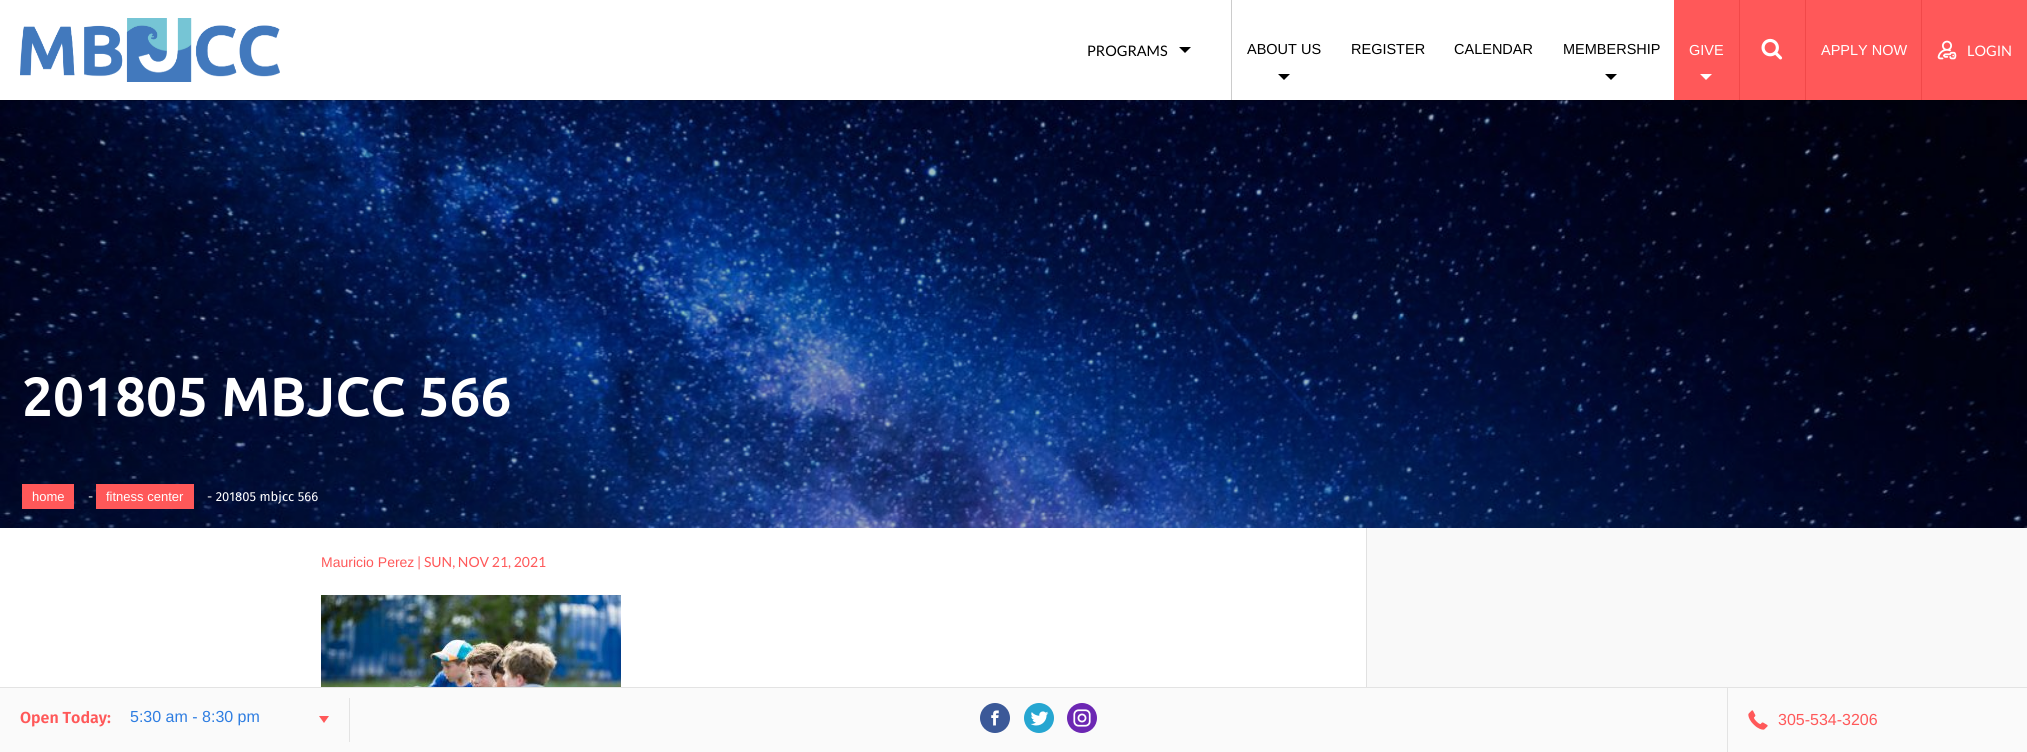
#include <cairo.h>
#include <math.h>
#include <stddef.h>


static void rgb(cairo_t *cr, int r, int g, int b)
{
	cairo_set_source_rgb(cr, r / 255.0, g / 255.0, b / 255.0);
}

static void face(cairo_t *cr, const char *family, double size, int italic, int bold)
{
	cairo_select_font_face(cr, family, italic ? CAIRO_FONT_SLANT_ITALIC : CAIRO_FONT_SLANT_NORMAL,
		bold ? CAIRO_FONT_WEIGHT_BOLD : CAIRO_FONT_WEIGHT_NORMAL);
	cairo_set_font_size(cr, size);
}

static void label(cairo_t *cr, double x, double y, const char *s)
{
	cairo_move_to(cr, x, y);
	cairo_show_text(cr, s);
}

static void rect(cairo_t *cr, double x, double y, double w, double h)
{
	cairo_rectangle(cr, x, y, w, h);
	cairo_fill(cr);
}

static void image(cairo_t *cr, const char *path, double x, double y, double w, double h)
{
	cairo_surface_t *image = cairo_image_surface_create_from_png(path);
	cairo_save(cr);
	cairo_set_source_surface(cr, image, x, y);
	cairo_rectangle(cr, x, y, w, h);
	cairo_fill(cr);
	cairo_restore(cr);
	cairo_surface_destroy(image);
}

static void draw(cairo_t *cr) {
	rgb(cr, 255, 255, 255);
	cairo_paint(cr);
	image(cr, "image0.png", 20, 18, 260, 64);
	face(cr, "Lato", 14.5, 0, 0);
	rgb(cr, 0, 0, 0);
	label(cr, 1087, 56, "PROGRAMS");
	cairo_new_path(cr);
	cairo_move_to(cr, 1179, 47);
	cairo_line_to(cr, 1191, 47);
	cairo_line_to(cr, 1185, 53);
	cairo_close_path(cr);
	cairo_fill(cr);
	rgb(cr, 204, 204, 204);
	rect(cr, 1231, 0, 1, 100);
	face(cr, "Liberation Sans", 14.5, 0, 0);
	rgb(cr, 0, 0, 0);
	label(cr, 1247, 54, "ABOUT US");
	cairo_new_path(cr);
	cairo_move_to(cr, 1278, 74);
	cairo_line_to(cr, 1290, 74);
	cairo_line_to(cr, 1284, 80);
	cairo_close_path(cr);
	cairo_fill(cr);
	label(cr, 1351, 54, "REGISTER");
	label(cr, 1454, 54, "CALENDAR");
	label(cr, 1563, 54, "MEMBERSHIP");
	cairo_new_path(cr);
	cairo_move_to(cr, 1605, 74);
	cairo_line_to(cr, 1617, 74);
	cairo_line_to(cr, 1611, 80);
	cairo_close_path(cr);
	cairo_fill(cr);
	rgb(cr, 255, 88, 89);
	rect(cr, 1674, 0, 65, 100);
	rgb(cr, 241, 72, 73);
	rect(cr, 1739, 0, 1, 100);
	rgb(cr, 255, 255, 255);
	label(cr, 1689, 55, "GIVE");
	cairo_new_path(cr);
	cairo_move_to(cr, 1700, 74);
	cairo_line_to(cr, 1712, 74);
	cairo_line_to(cr, 1706, 80);
	cairo_close_path(cr);
	cairo_fill(cr);
	rgb(cr, 241, 72, 73);
	rect(cr, 1805, 0, 1, 100);
	rgb(cr, 255, 88, 89);
	rect(cr, 1740, 0, 65, 100);
	image(cr, "image1.png", 1761, 38, 22, 22);
	rect(cr, 1806, 0, 115, 100);
	rgb(cr, 241, 72, 73);
	rect(cr, 1921, 0, 1, 100);
	rgb(cr, 255, 255, 255);
	label(cr, 1821, 55, "APPLY NOW");
	rgb(cr, 255, 88, 89);
	rect(cr, 1922, 0, 105, 100);
	image(cr, "image2.png", 1937, 40, 20, 20);
	face(cr, "Lato", 14.5, 0, 0);
	rgb(cr, 255, 255, 255);
	label(cr, 1967, 56, "LOGIN");
	image(cr, "image3.png", 0, 100, 2027, 428);
	cairo_set_source_rgba(cr, 0, 0, 0, 0.2);
	rect(cr, 0, 100, 2016, 1);
	face(cr, "Ubuntu", 55, 0, 1);
	rgb(cr, 255, 255, 255);
	label(cr, 22, 416, "201805 MBJCC 566");
	rgb(cr, 255, 88, 89);
	rect(cr, 22, 484, 52, 25);
	face(cr, "Liberation Sans", 13, 0, 0);
	rgb(cr, 255, 255, 255);
	label(cr, 32, 501, "home");
	face(cr, "Fira Sans", 13, 0, 0);
	label(cr, 88, 501, "-");
	rgb(cr, 255, 88, 89);
	rect(cr, 96, 484, 98, 25);
	face(cr, "Liberation Sans", 13, 0, 0);
	rgb(cr, 255, 255, 255);
	label(cr, 106, 501, "fitness center");
	face(cr, "Fira Sans", 13, 0, 0);
	label(cr, 207, 501, "- 201805 mbjcc 566");
	face(cr, "Liberation Sans", 14, 0, 0);
	rgb(cr, 255, 88, 89);
	label(cr, 321, 567, "Mauricio Perez");
	face(cr, "Lato", 14, 0, 0);
	label(cr, 417, 567, "| SUN, NOV 21, 2021");
	image(cr, "image4.png", 321, 595, 300, 92);
	rgb(cr, 249, 249, 249);
	rect(cr, 1367, 528, 660, 159);
	rgb(cr, 225, 225, 225);
	rect(cr, 1366, 528, 1, 159);
	rgb(cr, 250, 250, 250);
	rect(cr, 0, 688, 2027, 64);
	rgb(cr, 227, 227, 227);
	rect(cr, 0, 687, 2027, 1);
	rect(cr, 349, 698, 1, 44);
	face(cr, "Fira Sans SemiBold", 16, 0, 0);
	rgb(cr, 255, 88, 89);
	label(cr, 20, 723, "Open Today:");
	face(cr, "Liberation Sans", 16, 0, 0);
	rgb(cr, 46, 125, 225);
	label(cr, 130, 722, "5:30 am - 8:30 pm");
	rgb(cr, 255, 88, 89);
	cairo_new_path(cr);
	cairo_move_to(cr, 319, 716);
	cairo_line_to(cr, 329, 716);
	cairo_line_to(cr, 324, 723);
	cairo_close_path(cr);
	cairo_fill(cr);
	image(cr, "image5.png", 980, 703, 30, 30);
	image(cr, "image6.png", 1024, 703, 30, 30);
	image(cr, "image7.png", 1067, 703, 30, 30);
	rgb(cr, 227, 227, 227);
	rect(cr, 1727, 688, 1, 64);
	image(cr, "image8.png", 1748, 710, 20, 20);
	rgb(cr, 255, 88, 89);
	label(cr, 1778, 725, "305-534-3206");
}

int main(void) {
	cairo_surface_t *surface = cairo_image_surface_create(CAIRO_FORMAT_RGB24, 2027, 752);
	cairo_t *cr = cairo_create(surface);
	cairo_font_options_t *options = cairo_font_options_create();
	cairo_font_options_set_hint_metrics(options, CAIRO_HINT_METRICS_OFF);
	cairo_font_options_set_hint_style(options, CAIRO_HINT_STYLE_NONE);
	cairo_set_font_options(cr, options);
	cairo_set_miter_limit(cr, 4);
	draw(cr);
	cairo_surface_write_to_png(surface, "render.png");
	cairo_font_options_destroy(options);
	cairo_destroy(cr);
	cairo_surface_destroy(surface);
	return 0;
}
